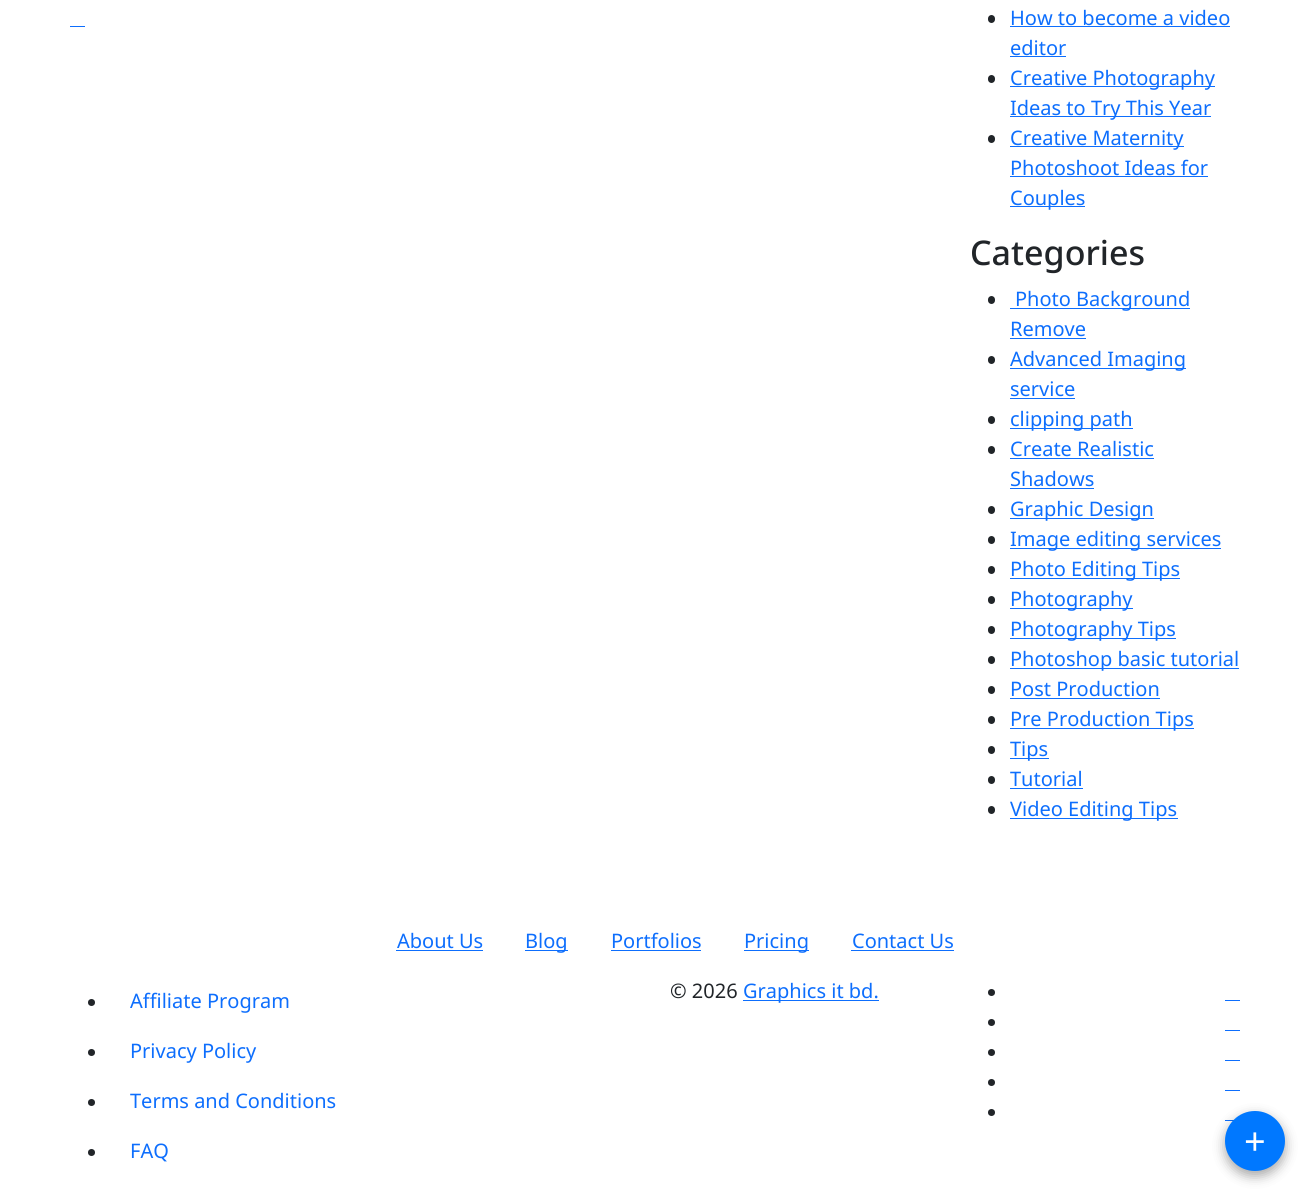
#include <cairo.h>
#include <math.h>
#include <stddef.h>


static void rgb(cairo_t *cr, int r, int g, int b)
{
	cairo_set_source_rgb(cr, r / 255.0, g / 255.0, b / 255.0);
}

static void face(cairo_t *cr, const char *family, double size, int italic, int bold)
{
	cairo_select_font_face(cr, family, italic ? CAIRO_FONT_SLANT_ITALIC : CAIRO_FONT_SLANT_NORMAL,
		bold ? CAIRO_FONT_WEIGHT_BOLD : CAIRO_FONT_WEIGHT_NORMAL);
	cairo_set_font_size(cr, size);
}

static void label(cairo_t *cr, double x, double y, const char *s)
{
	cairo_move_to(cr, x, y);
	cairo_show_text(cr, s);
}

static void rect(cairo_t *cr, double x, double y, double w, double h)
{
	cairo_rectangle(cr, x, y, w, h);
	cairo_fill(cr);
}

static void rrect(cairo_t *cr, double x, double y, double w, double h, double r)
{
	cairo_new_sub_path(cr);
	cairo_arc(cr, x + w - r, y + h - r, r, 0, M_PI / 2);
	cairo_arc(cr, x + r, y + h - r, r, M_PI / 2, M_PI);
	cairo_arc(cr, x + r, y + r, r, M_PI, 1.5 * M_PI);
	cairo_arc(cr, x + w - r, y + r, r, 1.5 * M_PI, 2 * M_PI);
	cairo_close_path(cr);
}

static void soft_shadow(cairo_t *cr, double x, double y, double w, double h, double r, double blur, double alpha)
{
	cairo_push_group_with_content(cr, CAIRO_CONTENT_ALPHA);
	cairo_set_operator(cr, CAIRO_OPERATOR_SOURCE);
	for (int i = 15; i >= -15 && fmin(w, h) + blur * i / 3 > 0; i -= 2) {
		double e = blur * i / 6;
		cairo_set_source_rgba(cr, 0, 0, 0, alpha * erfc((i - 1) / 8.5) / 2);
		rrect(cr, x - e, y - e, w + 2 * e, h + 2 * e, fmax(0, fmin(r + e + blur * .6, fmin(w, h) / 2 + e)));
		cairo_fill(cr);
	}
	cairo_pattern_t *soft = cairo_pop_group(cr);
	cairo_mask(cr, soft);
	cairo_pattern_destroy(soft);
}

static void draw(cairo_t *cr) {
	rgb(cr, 255, 255, 255);
	cairo_paint(cr);
	rgb(cr, 13, 110, 253);
	rect(cr, 70, 26, 15, 1);
	rgb(cr, 33, 37, 41);
	rrect(cr, 988, 15, 7, 8, 3.5);
	cairo_fill(cr);
	face(cr, "Noto Sans", 20, 0, 0);
	rgb(cr, 13, 110, 253);
	label(cr, 1010, 25, "How to become a video");
	rect(cr, 1010, 26, 220, 1);
	label(cr, 1010, 55, "editor");
	rect(cr, 1010, 56, 56, 1);
	rgb(cr, 33, 37, 41);
	rrect(cr, 988, 75, 7, 8, 3.5);
	cairo_fill(cr);
	rgb(cr, 13, 110, 253);
	rect(cr, 1010, 86, 205, 1);
	label(cr, 1010, 85, "Creative Photography");
	rect(cr, 1010, 116, 201, 1);
	label(cr, 1010, 115, "Ideas to Try This Year");
	rgb(cr, 33, 37, 41);
	rrect(cr, 988, 135, 7, 8, 3.5);
	cairo_fill(cr);
	rgb(cr, 13, 110, 253);
	rect(cr, 1010, 146, 174, 1);
	label(cr, 1010, 145, "Creative Maternity");
	label(cr, 1010, 175, "Photoshoot Ideas for");
	rect(cr, 1010, 176, 198, 1);
	rect(cr, 1010, 206, 75, 1);
	label(cr, 1010, 205, "Couples");
	face(cr, "Noto Sans Medium", 34, 0, 0);
	rgb(cr, 33, 37, 41);
	label(cr, 970, 265, "Categories");
	rrect(cr, 988, 296, 7, 8, 3.5);
	cairo_fill(cr);
	rgb(cr, 13, 110, 253);
	rect(cr, 1010, 308, 180, 1);
	face(cr, "Noto Sans", 20, 0, 0);
	label(cr, 1015, 306, "Photo Background");
	label(cr, 1010, 336, "Remove");
	rect(cr, 1010, 338, 76, 1);
	rgb(cr, 33, 37, 41);
	rrect(cr, 988, 356, 7, 8, 3.5);
	cairo_fill(cr);
	rgb(cr, 13, 110, 253);
	rect(cr, 1010, 368, 176, 1);
	label(cr, 1010, 366, "Advanced Imaging");
	label(cr, 1010, 396, "service");
	rect(cr, 1010, 398, 65, 1);
	rgb(cr, 33, 37, 41);
	rrect(cr, 988, 416, 7, 8, 3.5);
	cairo_fill(cr);
	rgb(cr, 13, 110, 253);
	rect(cr, 1010, 428, 123, 1);
	label(cr, 1010, 426, "clipping path");
	rgb(cr, 33, 37, 41);
	rrect(cr, 988, 446, 7, 8, 3.5);
	cairo_fill(cr);
	rgb(cr, 13, 110, 253);
	label(cr, 1010, 456, "Create Realistic");
	rect(cr, 1010, 458, 144, 1);
	label(cr, 1010, 486, "Shadows");
	rect(cr, 1010, 488, 84, 1);
	rgb(cr, 33, 37, 41);
	rrect(cr, 988, 506, 7, 8, 3.5);
	cairo_fill(cr);
	rgb(cr, 13, 110, 253);
	rect(cr, 1010, 518, 144, 1);
	label(cr, 1010, 516, "Graphic Design");
	rgb(cr, 33, 37, 41);
	rrect(cr, 988, 536, 7, 8, 3.5);
	cairo_fill(cr);
	rgb(cr, 13, 110, 253);
	rect(cr, 1010, 548, 211, 1);
	label(cr, 1010, 546, "Image editing services");
	rgb(cr, 33, 37, 41);
	rrect(cr, 988, 566, 7, 8, 3.5);
	cairo_fill(cr);
	rgb(cr, 13, 110, 253);
	rect(cr, 1010, 578, 170, 1);
	label(cr, 1010, 576, "Photo Editing Tips");
	rgb(cr, 33, 37, 41);
	rrect(cr, 988, 596, 7, 8, 3.5);
	cairo_fill(cr);
	rgb(cr, 13, 110, 253);
	rect(cr, 1010, 608, 123, 1);
	label(cr, 1010, 606, "Photography");
	rgb(cr, 33, 37, 41);
	rrect(cr, 988, 626, 7, 8, 3.5);
	cairo_fill(cr);
	rgb(cr, 13, 110, 253);
	rect(cr, 1010, 638, 166, 1);
	label(cr, 1010, 636, "Photography Tips");
	rgb(cr, 33, 37, 41);
	rrect(cr, 988, 656, 7, 8, 3.5);
	cairo_fill(cr);
	rgb(cr, 13, 110, 253);
	rect(cr, 1010, 668, 229, 1);
	label(cr, 1010, 666, "Photoshop basic tutorial");
	rgb(cr, 33, 37, 41);
	rrect(cr, 988, 686, 7, 8, 3.5);
	cairo_fill(cr);
	rgb(cr, 13, 110, 253);
	label(cr, 1010, 696, "Post Production");
	rect(cr, 1010, 698, 150, 1);
	rgb(cr, 33, 37, 41);
	rrect(cr, 988, 716, 7, 8, 3.5);
	cairo_fill(cr);
	rgb(cr, 13, 110, 253);
	rect(cr, 1010, 728, 184, 1);
	label(cr, 1010, 726, "Pre Production Tips");
	rgb(cr, 33, 37, 41);
	rrect(cr, 988, 746, 7, 8, 3.5);
	cairo_fill(cr);
	rgb(cr, 13, 110, 253);
	rect(cr, 1010, 758, 39, 1);
	label(cr, 1010, 756, "Tips");
	rgb(cr, 33, 37, 41);
	rrect(cr, 988, 776, 7, 8, 3.5);
	cairo_fill(cr);
	rgb(cr, 13, 110, 253);
	label(cr, 1010, 786, "Tutorial");
	rect(cr, 1010, 788, 73, 1);
	rgb(cr, 33, 37, 41);
	rrect(cr, 988, 806, 7, 8, 3.5);
	cairo_fill(cr);
	rgb(cr, 13, 110, 253);
	rect(cr, 1010, 818, 168, 1);
	label(cr, 1010, 816, "Video Editing Tips");
	label(cr, 397, 948, "About Us");
	rect(cr, 396, 950, 87, 1);
	rect(cr, 525, 950, 43, 1);
	label(cr, 525, 948, "Blog");
	label(cr, 611, 948, "Portfolios");
	rect(cr, 611, 950, 90, 1);
	rect(cr, 744, 950, 65, 1);
	label(cr, 744, 948, "Pricing");
	label(cr, 852, 948, "Contact Us");
	rect(cr, 851, 950, 103, 1);
	rgb(cr, 33, 37, 41);
	cairo_new_path(cr);
	cairo_arc(cr, 91.5, 1002.5, 3.5, 0, 2 * M_PI);
	cairo_fill(cr);
	rgb(cr, 13, 110, 253);
	label(cr, 130, 1008, "Affiliate Program");
	rgb(cr, 33, 37, 41);
	cairo_new_path(cr);
	cairo_arc(cr, 91.5, 1052.5, 3.5, 0, 2 * M_PI);
	cairo_fill(cr);
	rgb(cr, 13, 110, 253);
	label(cr, 130, 1058, "Privacy Policy");
	rgb(cr, 33, 37, 41);
	cairo_new_path(cr);
	cairo_arc(cr, 91.5, 1102.5, 3.5, 0, 2 * M_PI);
	cairo_fill(cr);
	rgb(cr, 13, 110, 253);
	label(cr, 130, 1108, "Terms and Conditions");
	rgb(cr, 33, 37, 41);
	cairo_new_path(cr);
	cairo_arc(cr, 91.5, 1152.5, 3.5, 0, 2 * M_PI);
	cairo_fill(cr);
	rgb(cr, 13, 110, 253);
	label(cr, 130, 1158, "FAQ");
	rgb(cr, 33, 37, 41);
	label(cr, 670, 998, "© 2026");
	rgb(cr, 13, 110, 253);
	rect(cr, 743, 1000, 136, 1);
	label(cr, 743, 998, "Graphics it bd.");
	rgb(cr, 33, 37, 41);
	cairo_new_path(cr);
	cairo_arc(cr, 991.5, 992.5, 3.5, 0, 2 * M_PI);
	cairo_fill(cr);
	rgb(cr, 13, 110, 253);
	rect(cr, 1225, 1000, 15, 1);
	rgb(cr, 33, 37, 41);
	cairo_arc(cr, 991.5, 1022.5, 3.5, 0, 2 * M_PI);
	cairo_fill(cr);
	rgb(cr, 13, 110, 253);
	rect(cr, 1225, 1030, 15, 1);
	rgb(cr, 33, 37, 41);
	cairo_arc(cr, 991.5, 1052.5, 3.5, 0, 2 * M_PI);
	cairo_fill(cr);
	rgb(cr, 13, 110, 253);
	rect(cr, 1225, 1060, 15, 1);
	rgb(cr, 33, 37, 41);
	cairo_arc(cr, 991.5, 1082.5, 3.5, 0, 2 * M_PI);
	cairo_fill(cr);
	rgb(cr, 13, 110, 253);
	rect(cr, 1225, 1090, 15, 1);
	rgb(cr, 33, 37, 41);
	cairo_arc(cr, 991.5, 1112.5, 3.5, 0, 2 * M_PI);
	cairo_fill(cr);
	rgb(cr, 13, 110, 253);
	rect(cr, 1225, 1120, 15, 1);
	rgb(cr, 0, 0, 0);
	soft_shadow(cr, 1225, 1116, 60, 60, 30, 6, 0.35);
	rgb(cr, 0, 120, 255);
	cairo_arc(cr, 1255, 1141, 30, 0, 2 * M_PI);
	cairo_fill(cr);
	face(cr, "Noto Sans", 38, 0, 0);
	rgb(cr, 255, 255, 255);
	label(cr, 1244, 1155, "+");
}

int main(void) {
	cairo_surface_t *surface = cairo_image_surface_create(CAIRO_FORMAT_RGB24, 1309, 1196);
	cairo_t *cr = cairo_create(surface);
	cairo_font_options_t *options = cairo_font_options_create();
	cairo_font_options_set_hint_metrics(options, CAIRO_HINT_METRICS_OFF);
	cairo_font_options_set_hint_style(options, CAIRO_HINT_STYLE_NONE);
	cairo_set_font_options(cr, options);
	cairo_set_miter_limit(cr, 4);
	draw(cr);
	cairo_surface_write_to_png(surface, "render.png");
	cairo_font_options_destroy(options);
	cairo_destroy(cr);
	cairo_surface_destroy(surface);
	return 0;
}
